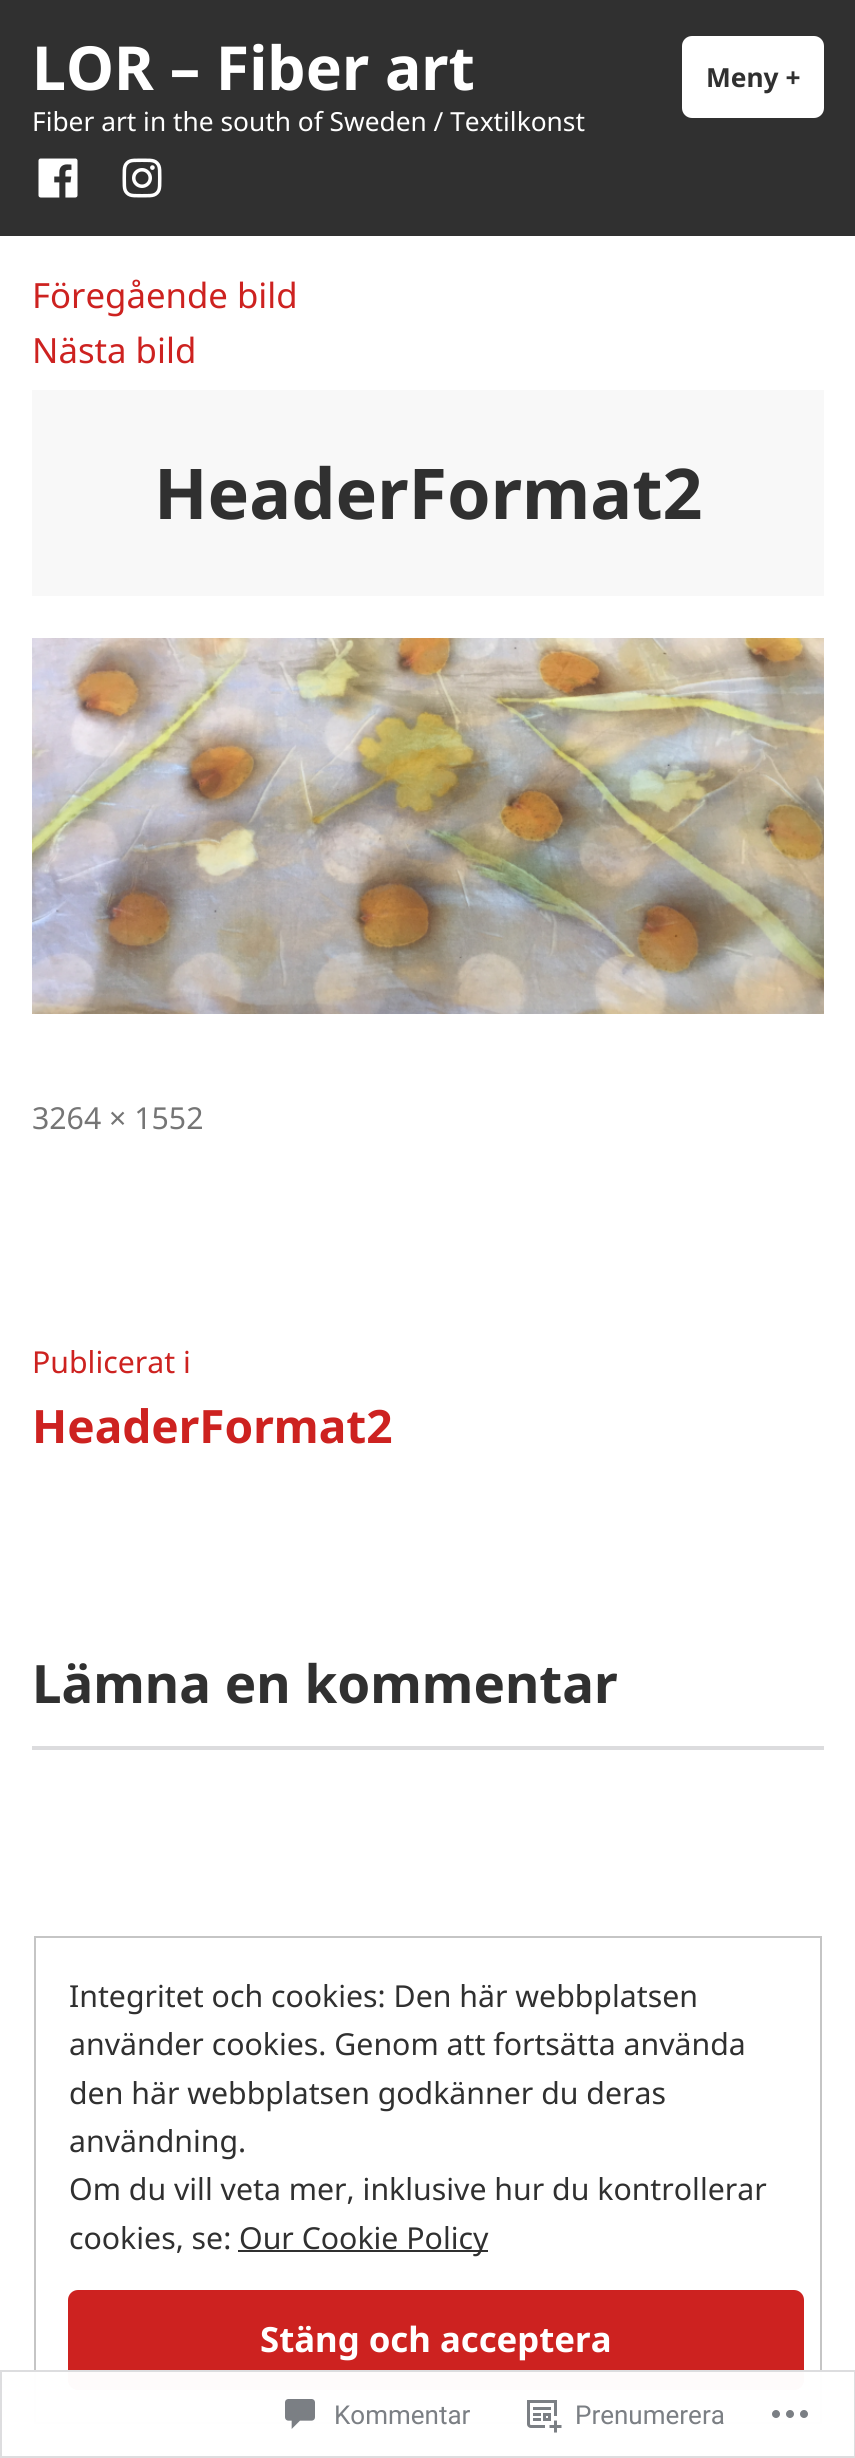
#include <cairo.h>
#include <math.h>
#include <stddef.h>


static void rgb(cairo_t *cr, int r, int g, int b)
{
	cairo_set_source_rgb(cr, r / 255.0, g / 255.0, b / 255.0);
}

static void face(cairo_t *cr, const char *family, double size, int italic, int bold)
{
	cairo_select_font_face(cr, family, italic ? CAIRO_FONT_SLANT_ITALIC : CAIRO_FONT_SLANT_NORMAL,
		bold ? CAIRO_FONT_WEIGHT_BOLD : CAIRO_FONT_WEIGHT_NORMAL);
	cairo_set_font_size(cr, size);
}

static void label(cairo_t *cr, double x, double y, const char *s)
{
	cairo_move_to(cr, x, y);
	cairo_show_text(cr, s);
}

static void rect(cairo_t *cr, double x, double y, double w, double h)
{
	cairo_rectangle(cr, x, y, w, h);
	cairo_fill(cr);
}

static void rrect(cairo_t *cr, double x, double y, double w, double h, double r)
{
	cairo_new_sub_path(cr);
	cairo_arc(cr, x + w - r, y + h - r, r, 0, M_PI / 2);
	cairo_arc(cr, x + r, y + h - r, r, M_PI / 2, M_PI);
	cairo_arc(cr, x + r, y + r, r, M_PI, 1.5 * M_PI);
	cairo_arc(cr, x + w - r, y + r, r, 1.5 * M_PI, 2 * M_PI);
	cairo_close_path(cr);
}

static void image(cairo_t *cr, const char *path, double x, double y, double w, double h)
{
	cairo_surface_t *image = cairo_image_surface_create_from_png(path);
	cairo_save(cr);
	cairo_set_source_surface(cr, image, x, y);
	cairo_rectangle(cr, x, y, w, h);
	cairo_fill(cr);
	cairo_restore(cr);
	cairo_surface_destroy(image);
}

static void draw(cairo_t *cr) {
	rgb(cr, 255, 255, 255);
	cairo_paint(cr);
	rgb(cr, 48, 48, 48);
	rect(cr, 0, 0, 855, 236);
	face(cr, "Noto Sans", 60.75, 0, 1);
	rgb(cr, 255, 255, 255);
	label(cr, 32, 90, "LOR – Fiber art");
	rrect(cr, 682, 36, 142, 82, 10);
	cairo_fill(cr);
	face(cr, "Noto Sans", 26.3, 0, 1);
	rgb(cr, 48, 48, 48);
	label(cr, 706, 87, "Meny +");
	face(cr, "Noto Sans", 26.3, 0, 0);
	rgb(cr, 255, 255, 255);
	label(cr, 32, 131, "Fiber art in the south of Sweden / Textilkonst");
	image(cr, "image0.png", 38, 158, 40, 40);
	image(cr, "image1.png", 122, 158, 40, 40);
	face(cr, "Noto Sans", 34.75, 0, 0);
	rgb(cr, 205, 34, 32);
	label(cr, 32, 308, "Föregående bild");
	label(cr, 32, 363, "Nästa bild");
	rgb(cr, 248, 248, 248);
	rect(cr, 32, 390, 792, 206);
	face(cr, "Noto Sans", 70, 0, 1);
	rgb(cr, 48, 48, 48);
	label(cr, 154, 519, "HeaderFormat2");
	image(cr, "image2.png", 32, 638, 792, 376);
	face(cr, "Noto Sans", 30.25, 0, 0);
	rgb(cr, 117, 117, 117);
	label(cr, 32, 1129, "3264 × 1552");
	rgb(cr, 205, 34, 32);
	label(cr, 32, 1373, "Publicerat i");
	face(cr, "Noto Sans", 46, 0, 1);
	label(cr, 32, 1443, "HeaderFormat2");
	face(cr, "Noto Sans", 52.9, 0, 1);
	rgb(cr, 48, 48, 48);
	label(cr, 32, 1703, "Lämna en kommentar");
	rgb(cr, 220, 220, 222);
	rect(cr, 32, 1746, 792, 4);
	cairo_rectangle(cr, 35, 1937, 786, 486);
	rgb(cr, 197, 197, 197);
	cairo_stroke(cr);
	face(cr, "Noto Sans", 30.25, 0, 0);
	rgb(cr, 48, 48, 48);
	label(cr, 69, 2007, "Integritet och cookies: Den här webbplatsen");
	label(cr, 69, 2055, "använder cookies. Genom att fortsätta använda");
	label(cr, 69, 2104, "den här webbplatsen godkänner du deras");
	label(cr, 69, 2152, "användning.");
	label(cr, 69, 2200, "Om du vill veta mer, inklusive hur du kontrollerar");
	label(cr, 69, 2249, "cookies, se:");
	rect(cr, 238, 2250, 250, 2);
	label(cr, 239, 2249, "Our Cookie Policy");
	rgb(cr, 205, 34, 32);
	rrect(cr, 68, 2290, 736, 100, 10);
	cairo_fill(cr);
	face(cr, "Noto Sans", 34.75, 0, 1);
	rgb(cr, 255, 255, 255);
	label(cr, 260, 2352, "Stäng och acceptera");
	cairo_set_source_rgba(cr, 1, 1, 1, 0.98);
	rect(cr, 34, 2370, 788, 54);
	cairo_rectangle(cr, 1, 2371, 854, 86);
	cairo_set_source_rgba(cr, 0.863, 0.863, 0.871, 0.98);
	cairo_stroke(cr);
	image(cr, "image3.png", 285, 2399, 30, 30);
	face(cr, "Roboto", 26, 0, 0);
	rgb(cr, 123, 127, 132);
	label(cr, 334, 2424, "Kommentar");
	image(cr, "image4.png", 527, 2400, 35, 33);
	label(cr, 575, 2424, "Prenumerera");
	image(cr, "image5.png", 772, 2410, 36, 8);
}

int main(void) {
	cairo_surface_t *surface = cairo_image_surface_create(CAIRO_FORMAT_RGB24, 855, 2458);
	cairo_t *cr = cairo_create(surface);
	cairo_font_options_t *options = cairo_font_options_create();
	cairo_font_options_set_hint_metrics(options, CAIRO_HINT_METRICS_OFF);
	cairo_font_options_set_hint_style(options, CAIRO_HINT_STYLE_NONE);
	cairo_set_font_options(cr, options);
	cairo_set_miter_limit(cr, 4);
	draw(cr);
	cairo_surface_write_to_png(surface, "render.png");
	cairo_font_options_destroy(options);
	cairo_destroy(cr);
	cairo_surface_destroy(surface);
	return 0;
}
